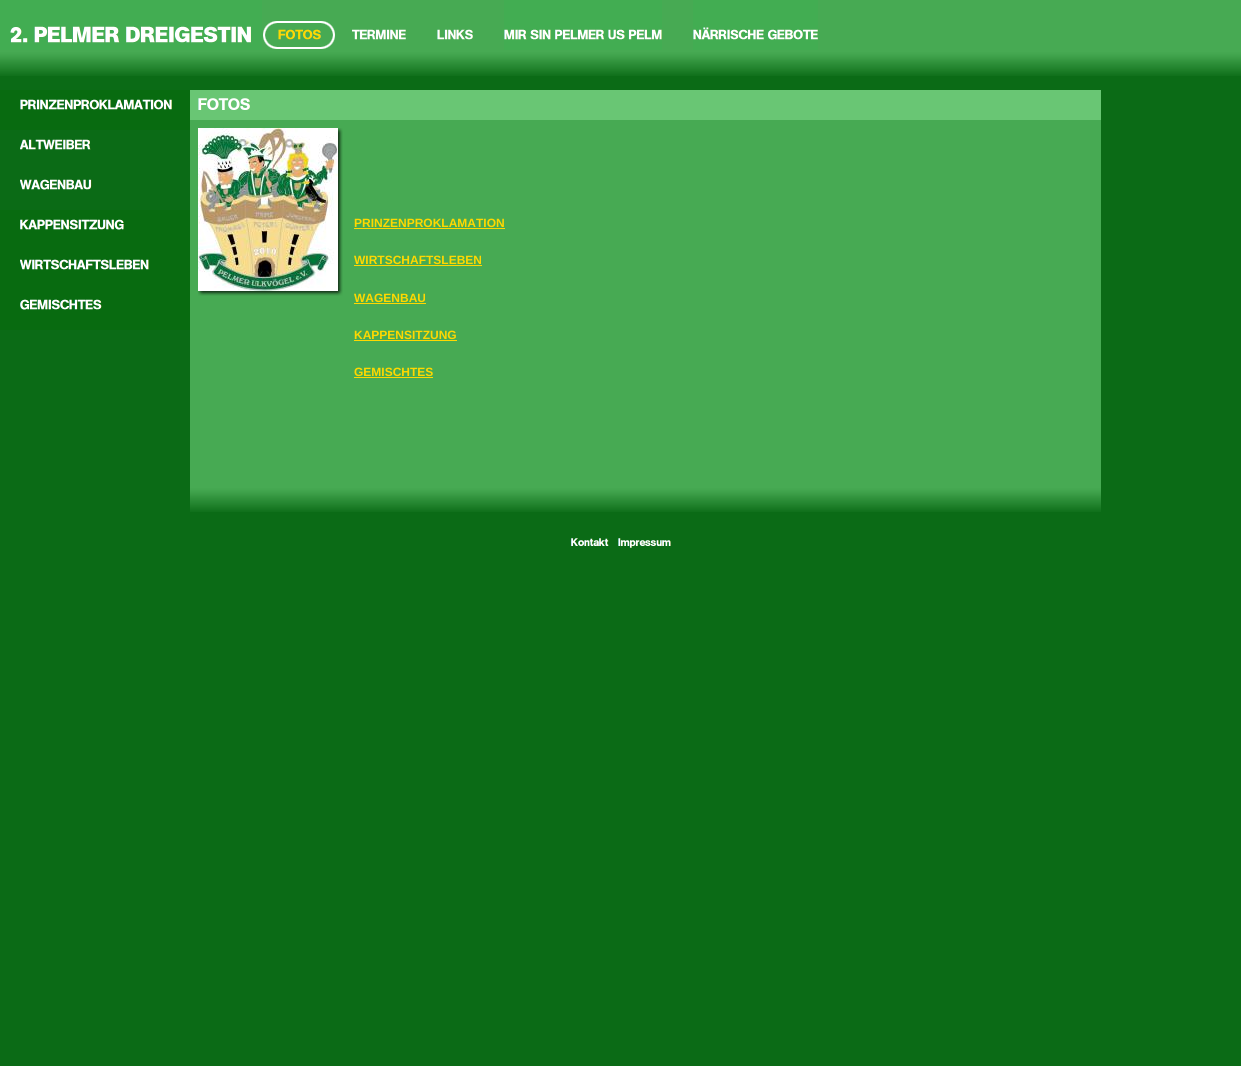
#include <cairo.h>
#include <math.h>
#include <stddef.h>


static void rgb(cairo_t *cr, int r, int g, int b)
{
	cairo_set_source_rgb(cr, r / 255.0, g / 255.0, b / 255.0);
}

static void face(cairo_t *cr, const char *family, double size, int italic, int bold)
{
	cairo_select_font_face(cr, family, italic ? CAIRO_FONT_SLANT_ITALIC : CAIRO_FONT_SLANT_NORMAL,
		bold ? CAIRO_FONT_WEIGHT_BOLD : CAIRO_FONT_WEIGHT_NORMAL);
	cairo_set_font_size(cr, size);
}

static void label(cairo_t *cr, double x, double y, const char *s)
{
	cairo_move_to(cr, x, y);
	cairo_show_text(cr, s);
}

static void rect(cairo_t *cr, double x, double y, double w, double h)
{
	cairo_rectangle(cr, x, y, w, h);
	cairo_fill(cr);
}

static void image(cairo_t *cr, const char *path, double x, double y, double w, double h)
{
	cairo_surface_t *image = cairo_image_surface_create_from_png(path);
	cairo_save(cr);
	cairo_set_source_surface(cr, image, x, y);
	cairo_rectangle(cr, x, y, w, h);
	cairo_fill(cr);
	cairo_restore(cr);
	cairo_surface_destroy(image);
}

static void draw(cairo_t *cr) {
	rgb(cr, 11, 107, 22);
	cairo_paint(cr);
	rgb(cr, 71, 170, 83);
	rect(cr, 262, 0, 979, 50);
	image(cr, "image0.png", 0, 0, 262, 50);
	image(cr, "image1.png", 263, 21, 15, 28);
	image(cr, "image2.png", 278, 21, 43, 28);
	image(cr, "image3.png", 321, 21, 14, 28);
	image(cr, "image4.png", 352, 29, 54, 11);
	image(cr, "image5.png", 437, 29, 36, 11);
	image(cr, "image6.png", 504, 0, 158, 50);
	image(cr, "image7.png", 693, 0, 125, 50);
	image(cr, "image8.png", 0, 50, 1241, 26);
	image(cr, "image9.png", 0, 90, 190, 40);
	image(cr, "image10.png", 20, 139, 71, 11);
	image(cr, "image11.png", 20, 179, 72, 11);
	image(cr, "image12.png", 0, 210, 190, 40);
	image(cr, "image13.png", 0, 250, 190, 40);
	image(cr, "image14.png", 0, 290, 190, 40);
	rect(cr, 190, 120, 911, 366);
	rgb(cr, 105, 198, 116);
	rect(cr, 190, 90, 911, 30);
	image(cr, "image15.png", 198, 98, 52, 12);
	image(cr, "image16.png", 198, 128, 140, 163);
	image(cr, "image17.png", 338, 133, 5, 158);
	image(cr, "image18.png", 338, 128, 5, 5);
	image(cr, "image19.png", 198, 291, 145, 5);
	face(cr, "Liberation Sans", 12, 0, 1);
	rgb(cr, 255, 216, 0);
	label(cr, 354, 227, "PRINZENPROKLAMATION");
	rect(cr, 354, 228, 151, 1);
	label(cr, 354, 264, "WIRTSCHAFTSLEBEN");
	rect(cr, 354, 265, 128, 1);
	label(cr, 354, 302, "WAGENBAU");
	rect(cr, 354, 303, 72, 1);
	label(cr, 354, 339, "KAPPENSITZUNG");
	rect(cr, 354, 340, 103, 1);
	label(cr, 354, 376, "GEMISCHTES");
	rect(cr, 354, 377, 79, 1);
	image(cr, "image20.png", 190, 486, 911, 26);
	image(cr, "image21.png", 571, 538, 38, 8);
	image(cr, "image22.png", 618, 538, 53, 10);
}

int main(void) {
	cairo_surface_t *surface = cairo_image_surface_create(CAIRO_FORMAT_RGB24, 1241, 1066);
	cairo_t *cr = cairo_create(surface);
	cairo_font_options_t *options = cairo_font_options_create();
	cairo_font_options_set_hint_metrics(options, CAIRO_HINT_METRICS_OFF);
	cairo_font_options_set_hint_style(options, CAIRO_HINT_STYLE_NONE);
	cairo_set_font_options(cr, options);
	cairo_set_miter_limit(cr, 4);
	draw(cr);
	cairo_surface_write_to_png(surface, "render.png");
	cairo_font_options_destroy(options);
	cairo_destroy(cr);
	cairo_surface_destroy(surface);
	return 0;
}
